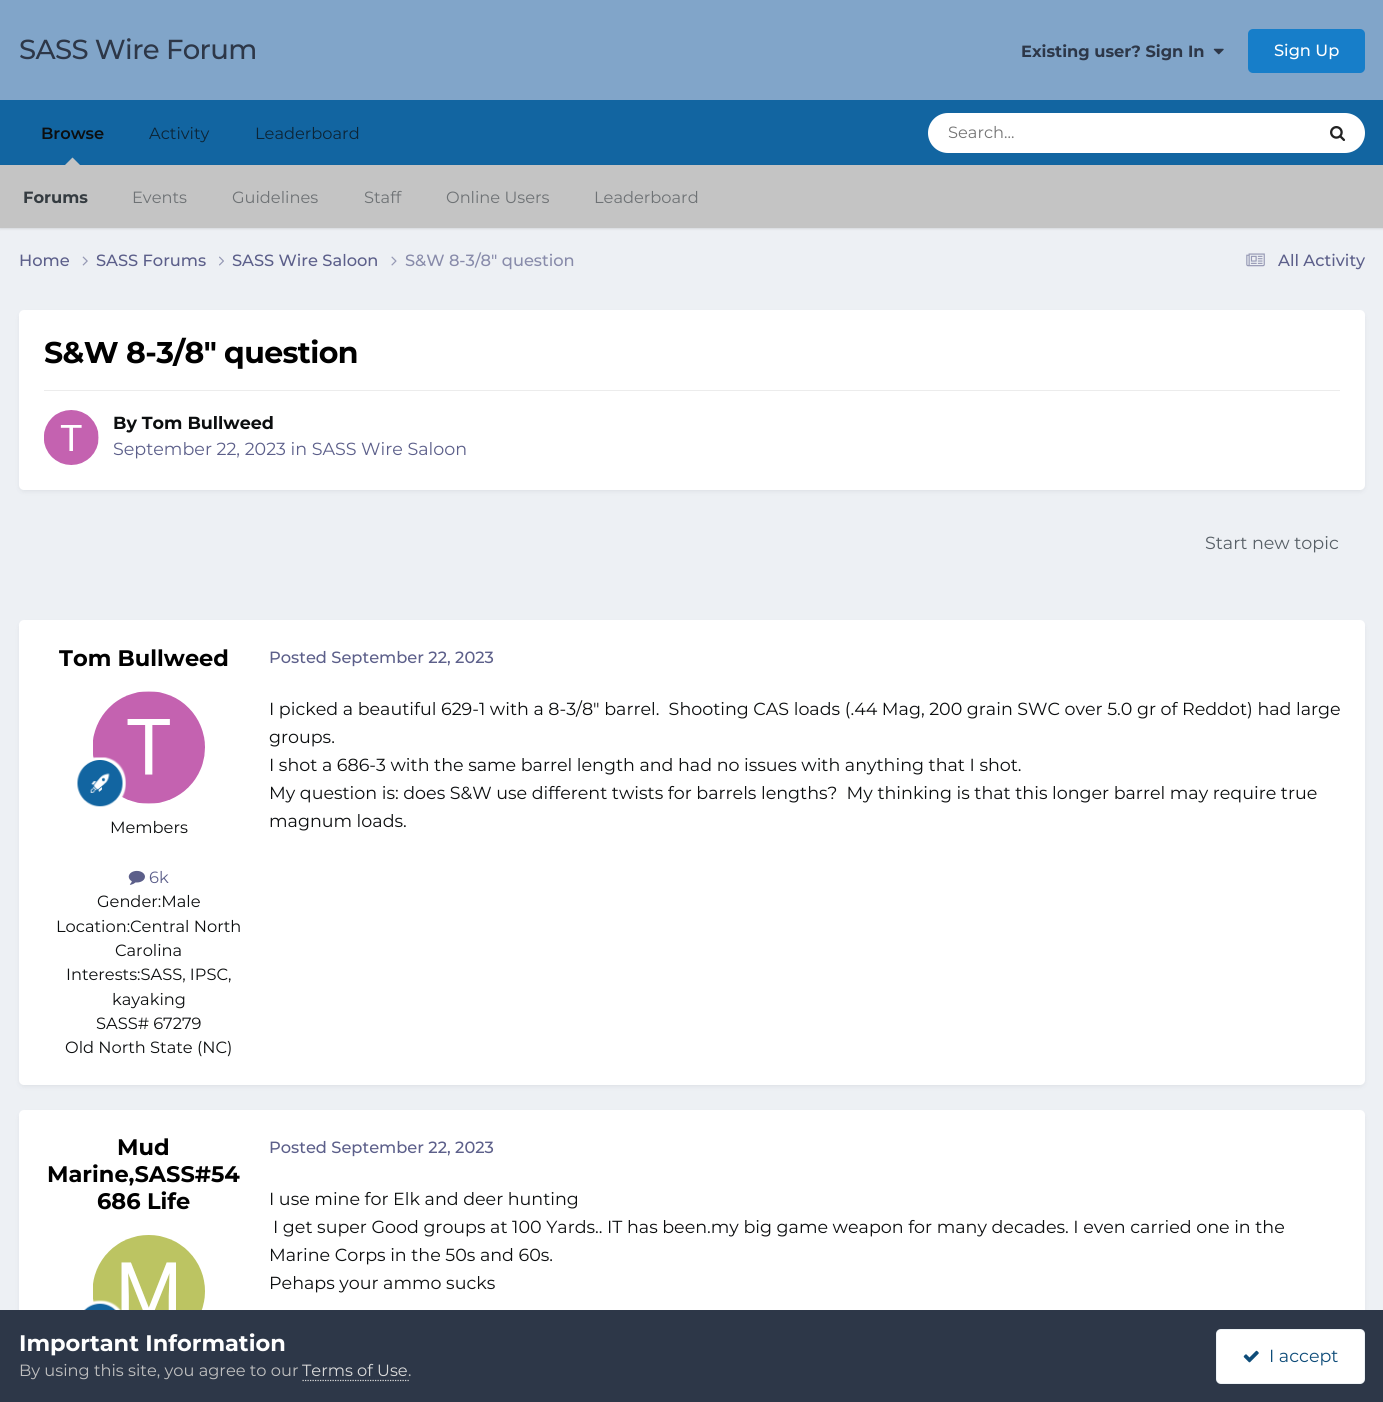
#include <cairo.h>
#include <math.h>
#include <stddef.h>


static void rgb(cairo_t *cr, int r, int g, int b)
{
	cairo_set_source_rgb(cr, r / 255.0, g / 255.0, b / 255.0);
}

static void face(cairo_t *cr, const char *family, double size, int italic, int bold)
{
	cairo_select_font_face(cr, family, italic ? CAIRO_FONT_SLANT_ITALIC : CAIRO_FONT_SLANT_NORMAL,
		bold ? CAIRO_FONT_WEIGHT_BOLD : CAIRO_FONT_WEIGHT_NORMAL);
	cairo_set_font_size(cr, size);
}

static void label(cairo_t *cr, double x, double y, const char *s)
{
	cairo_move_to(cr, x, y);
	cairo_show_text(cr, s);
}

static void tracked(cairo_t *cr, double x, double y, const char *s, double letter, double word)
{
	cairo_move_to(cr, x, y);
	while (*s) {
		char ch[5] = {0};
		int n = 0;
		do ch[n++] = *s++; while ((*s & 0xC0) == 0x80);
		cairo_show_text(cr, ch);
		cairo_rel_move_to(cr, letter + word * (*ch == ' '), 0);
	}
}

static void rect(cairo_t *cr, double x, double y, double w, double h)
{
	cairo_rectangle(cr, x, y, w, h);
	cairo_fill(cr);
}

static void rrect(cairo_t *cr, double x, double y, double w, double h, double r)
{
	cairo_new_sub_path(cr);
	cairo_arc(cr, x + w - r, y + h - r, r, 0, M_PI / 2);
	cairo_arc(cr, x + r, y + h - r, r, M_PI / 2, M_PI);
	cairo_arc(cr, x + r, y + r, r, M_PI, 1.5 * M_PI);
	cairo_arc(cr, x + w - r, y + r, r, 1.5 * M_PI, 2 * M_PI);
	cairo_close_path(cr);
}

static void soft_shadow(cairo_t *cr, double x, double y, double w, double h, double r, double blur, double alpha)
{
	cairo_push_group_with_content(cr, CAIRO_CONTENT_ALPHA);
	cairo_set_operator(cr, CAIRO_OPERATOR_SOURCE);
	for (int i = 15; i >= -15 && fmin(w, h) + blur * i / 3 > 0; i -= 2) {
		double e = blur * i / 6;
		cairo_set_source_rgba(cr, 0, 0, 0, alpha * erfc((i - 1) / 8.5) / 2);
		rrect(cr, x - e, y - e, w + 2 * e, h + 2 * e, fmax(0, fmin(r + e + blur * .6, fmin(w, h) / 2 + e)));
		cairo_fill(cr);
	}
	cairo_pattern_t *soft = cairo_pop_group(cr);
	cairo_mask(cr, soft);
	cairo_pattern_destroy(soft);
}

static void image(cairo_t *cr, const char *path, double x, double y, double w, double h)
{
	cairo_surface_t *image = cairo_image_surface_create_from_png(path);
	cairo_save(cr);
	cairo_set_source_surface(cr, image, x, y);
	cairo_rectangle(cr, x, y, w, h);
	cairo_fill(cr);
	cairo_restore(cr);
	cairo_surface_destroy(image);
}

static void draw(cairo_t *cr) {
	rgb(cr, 237, 240, 244);
	cairo_paint(cr);
	rgb(cr, 129, 165, 201);
	rect(cr, 0, 0, 1383, 100);
	face(cr, "Montserrat Medium", 27.5, 0, 0);
	rgb(cr, 45, 55, 72);
	tracked(cr, 19, 59, "SASS Wire Forum", -0.6, 0);
	face(cr, "Montserrat", 16.25, 0, 1);
	label(cr, 1021, 57, "Existing user? Sign In");
	image(cr, "image0.png", 1213, 48, 11, 7);
	rgb(cr, 23, 126, 201);
	rrect(cr, 1248, 29, 117, 44, 5);
	cairo_fill(cr);
	face(cr, "Montserrat Medium", 16.25, 0, 0);
	rgb(cr, 255, 255, 255);
	label(cr, 1274, 56, "Sign Up");
	rgb(cr, 18, 101, 161);
	rect(cr, 0, 100, 1383, 65);
	face(cr, "Montserrat", 16.25, 0, 0);
	rgb(cr, 12, 37, 55);
	label(cr, 149, 139, "Activity");
	label(cr, 255, 139, "Leaderboard");
	face(cr, "Montserrat SemiBold", 16.25, 0, 0);
	rgb(cr, 12, 14, 15);
	label(cr, 41, 139, "Browse");
	rgb(cr, 0, 0, 0);
	soft_shadow(cr, 0, 166, 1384, 63, 0, 1, 0.1);
	rgb(cr, 196, 196, 196);
	cairo_new_path(cr);
	cairo_move_to(cr, 80, 165);
	cairo_line_to(cr, 65, 165);
	cairo_line_to(cr, 72.5, 157.5);
	cairo_close_path(cr);
	cairo_fill(cr);
	rect(cr, 0, 165, 1383, 63);
	face(cr, "Montserrat", 16.25, 0, 1);
	rgb(cr, 53, 60, 65);
	label(cr, 23, 203, "Forums");
	face(cr, "Montserrat", 16.25, 0, 0);
	rgb(cr, 110, 114, 117);
	label(cr, 132, 203, "Events");
	label(cr, 232, 203, "Guidelines");
	label(cr, 364, 203, "Staff");
	label(cr, 446, 203, "Online Users");
	label(cr, 594, 203, "Leaderboard");
	rgb(cr, 255, 255, 255);
	rrect(cr, 928, 113, 437, 40, 20);
	cairo_fill(cr);
	rgb(cr, 117, 117, 117);
	label(cr, 948, 138, "Search...");
	image(cr, "image1.png", 1330, 126, 16, 15);
	face(cr, "Montserrat Medium", 16.25, 0, 0);
	rgb(cr, 92, 95, 138);
	label(cr, 19, 266, "Home");
	image(cr, "image2.png", 82, 256, 6, 10);
	label(cr, 96, 266, "SASS Forums");
	image(cr, "image3.png", 219, 256, 5, 10);
	label(cr, 232, 266, "SASS Wire Saloon");
	image(cr, "image4.png", 391, 256, 6, 10);
	rgb(cr, 136, 139, 170);
	label(cr, 405, 266, "S&W 8-3/8\" question");
	image(cr, "image5.png", 1246, 253, 19, 14);
	rgb(cr, 92, 95, 138);
	label(cr, 1278, 266, "All Activity");
	rgb(cr, 45, 55, 72);
	soft_shadow(cr, 20, 314, 1344, 177, 4, 2.5, 0.1);
	rgb(cr, 255, 255, 255);
	rrect(cr, 19, 310, 1346, 180, 5);
	cairo_fill(cr);
	face(cr, "Montserrat", 30, 0, 1);
	rgb(cr, 0, 0, 0);
	tracked(cr, 44, 363, "S&W 8-3/8\" question", -0.6, 0);
	rgb(cr, 236, 236, 236);
	rect(cr, 44, 390, 1296, 1);
	image(cr, "image6.png", 44, 410, 55, 55);
	face(cr, "Montserrat", 17.5, 0, 1);
	rgb(cr, 12, 14, 15);
	label(cr, 113, 429, "By Tom Bullweed");
	face(cr, "Montserrat", 17.5, 0, 0);
	rgb(cr, 92, 95, 138);
	label(cr, 113, 455, "September 22, 2023 in SASS Wire Saloon");
	rgb(cr, 87, 95, 102);
	label(cr, 1205, 549, "Start new topic");
	rgb(cr, 45, 55, 72);
	soft_shadow(cr, 20, 624, 1344, 462, 4, 2.5, 0.1);
	rgb(cr, 255, 255, 255);
	rrect(cr, 19, 620, 1346, 465, 5);
	cairo_fill(cr);
	cairo_save(cr);
	cairo_rectangle(cr, 59, 645, 170, 28);
	cairo_clip(cr);
	face(cr, "Montserrat", 22.5, 0, 1);
	rgb(cr, 0, 0, 0);
	label(cr, 59, 666, "Tom Bullweed");
	cairo_restore(cr);
	image(cr, "image7.png", 93, 691, 112, 113);
	image(cr, "image8.png", 77, 757, 49, 50);
	face(cr, "Montserrat", 16.25, 0, 0);
	rgb(cr, 12, 14, 15);
	label(cr, 110, 833, "Members");
	image(cr, "image9.png", 128, 870, 17, 15);
	rgb(cr, 92, 95, 138);
	label(cr, 149, 883, "6k");
	rgb(cr, 12, 14, 15);
	label(cr, 97, 907, "Gender:Male");
	label(cr, 56, 932, "Location:Central North");
	label(cr, 115, 956, "Carolina");
	label(cr, 66, 980, "Interests:SASS, IPSC,");
	label(cr, 112, 1005, "kayaking");
	label(cr, 96, 1029, "SASS# 67279");
	label(cr, 65, 1053, "Old North State (NC)");
	face(cr, "Montserrat Medium", 16.25, 0, 0);
	rgb(cr, 92, 95, 138);
	label(cr, 269, 663, "Posted September 22, 2023");
	face(cr, "Montserrat", 17.5, 0, 0);
	rgb(cr, 12, 14, 15);
	label(cr, 269, 715, "I picked a beautiful 629-1 with a 8-3/8\" barrel.  Shooting CAS loads (.44 Mag, 200 grain SWC over 5.0 gr of Reddot) had large");
	label(cr, 269, 743, "groups.");
	label(cr, 269, 771, "I shot a 686-3 with the same barrel length and had no issues with anything that I shot.");
	label(cr, 269, 799, "My question is: does S&W use different twists for barrels lengths?  My thinking is that this longer barrel may require true");
	label(cr, 269, 827, "magnum loads.");
	rgb(cr, 45, 55, 72);
	soft_shadow(cr, 20, 1114, 1344, 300, 4, 2.5, 0.1);
	rgb(cr, 255, 255, 255);
	rrect(cr, 19, 1110, 1346, 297, 5);
	cairo_fill(cr);
	face(cr, "Montserrat", 22.5, 0, 1);
	rgb(cr, 0, 0, 0);
	label(cr, 117, 1155, "Mud");
	label(cr, 47, 1182, "Marine,SASS#54");
	label(cr, 97, 1209, "686 Life");
	image(cr, "image10.png", 93, 1235, 112, 75);
	image(cr, "image11.png", 79, 1300, 42, 10);
	face(cr, "Montserrat Medium", 16.25, 0, 0);
	rgb(cr, 92, 95, 138);
	label(cr, 269, 1153, "Posted September 22, 2023");
	face(cr, "Montserrat", 17.5, 0, 0);
	rgb(cr, 12, 14, 15);
	label(cr, 269, 1205, "I use mine for Elk and deer hunting");
	label(cr, 273, 1233, "I get super Good groups at 100 Yards.. IT has been.my big game weapon for many decades. I even carried one in the");
	label(cr, 269, 1261, "Marine Corps in the 50s and 60s.");
	label(cr, 269, 1289, "Pehaps your ammo sucks");
	rgb(cr, 45, 55, 72);
	rect(cr, 0, 1310, 1383, 92);
	face(cr, "Montserrat", 22.5, 0, 1);
	rgb(cr, 255, 255, 255);
	label(cr, 19, 1351, "Important Information");
	face(cr, "Montserrat", 16.25, 0, 0);
	rgb(cr, 192, 192, 192);
	label(cr, 19, 1376, "By using this site, you agree to our");
	rgb(cr, 218, 218, 218);
	label(cr, 302, 1376, "Terms of Use");
	cairo_new_path(cr);
	cairo_move_to(cr, 302.5, 1380.5);
	cairo_line_to(cr, 409, 1380.5);
	cairo_set_line_width(cr, 1.2);
	cairo_set_dash(cr, (double[]){1.25, 1.25}, 2, 0);
	cairo_stroke(cr);
	rgb(cr, 192, 192, 192);
	label(cr, 408, 1376, ".");
	rgb(cr, 255, 255, 255);
	rrect(cr, 1216, 1329, 149, 55, 5);
	cairo_fill(cr);
	rrect(cr, 1216.5, 1329.5, 148, 54, 4.5);
	cairo_set_source_rgba(cr, 0.055, 0.298, 0.475, 0.07);
	cairo_set_line_width(cr, 1);
	cairo_set_dash(cr, NULL, 0, 0);
	cairo_stroke(cr);
	image(cr, "image12.png", 1243, 1350, 16, 13);
	face(cr, "Montserrat", 17.5, 0, 0);
	rgb(cr, 14, 76, 121);
	label(cr, 1269, 1362, "I accept");
}

int main(void) {
	cairo_surface_t *surface = cairo_image_surface_create(CAIRO_FORMAT_RGB24, 1383, 1402);
	cairo_t *cr = cairo_create(surface);
	cairo_font_options_t *options = cairo_font_options_create();
	cairo_font_options_set_hint_metrics(options, CAIRO_HINT_METRICS_OFF);
	cairo_font_options_set_hint_style(options, CAIRO_HINT_STYLE_NONE);
	cairo_set_font_options(cr, options);
	cairo_set_miter_limit(cr, 4);
	draw(cr);
	cairo_surface_write_to_png(surface, "render.png");
	cairo_font_options_destroy(options);
	cairo_destroy(cr);
	cairo_surface_destroy(surface);
	return 0;
}
